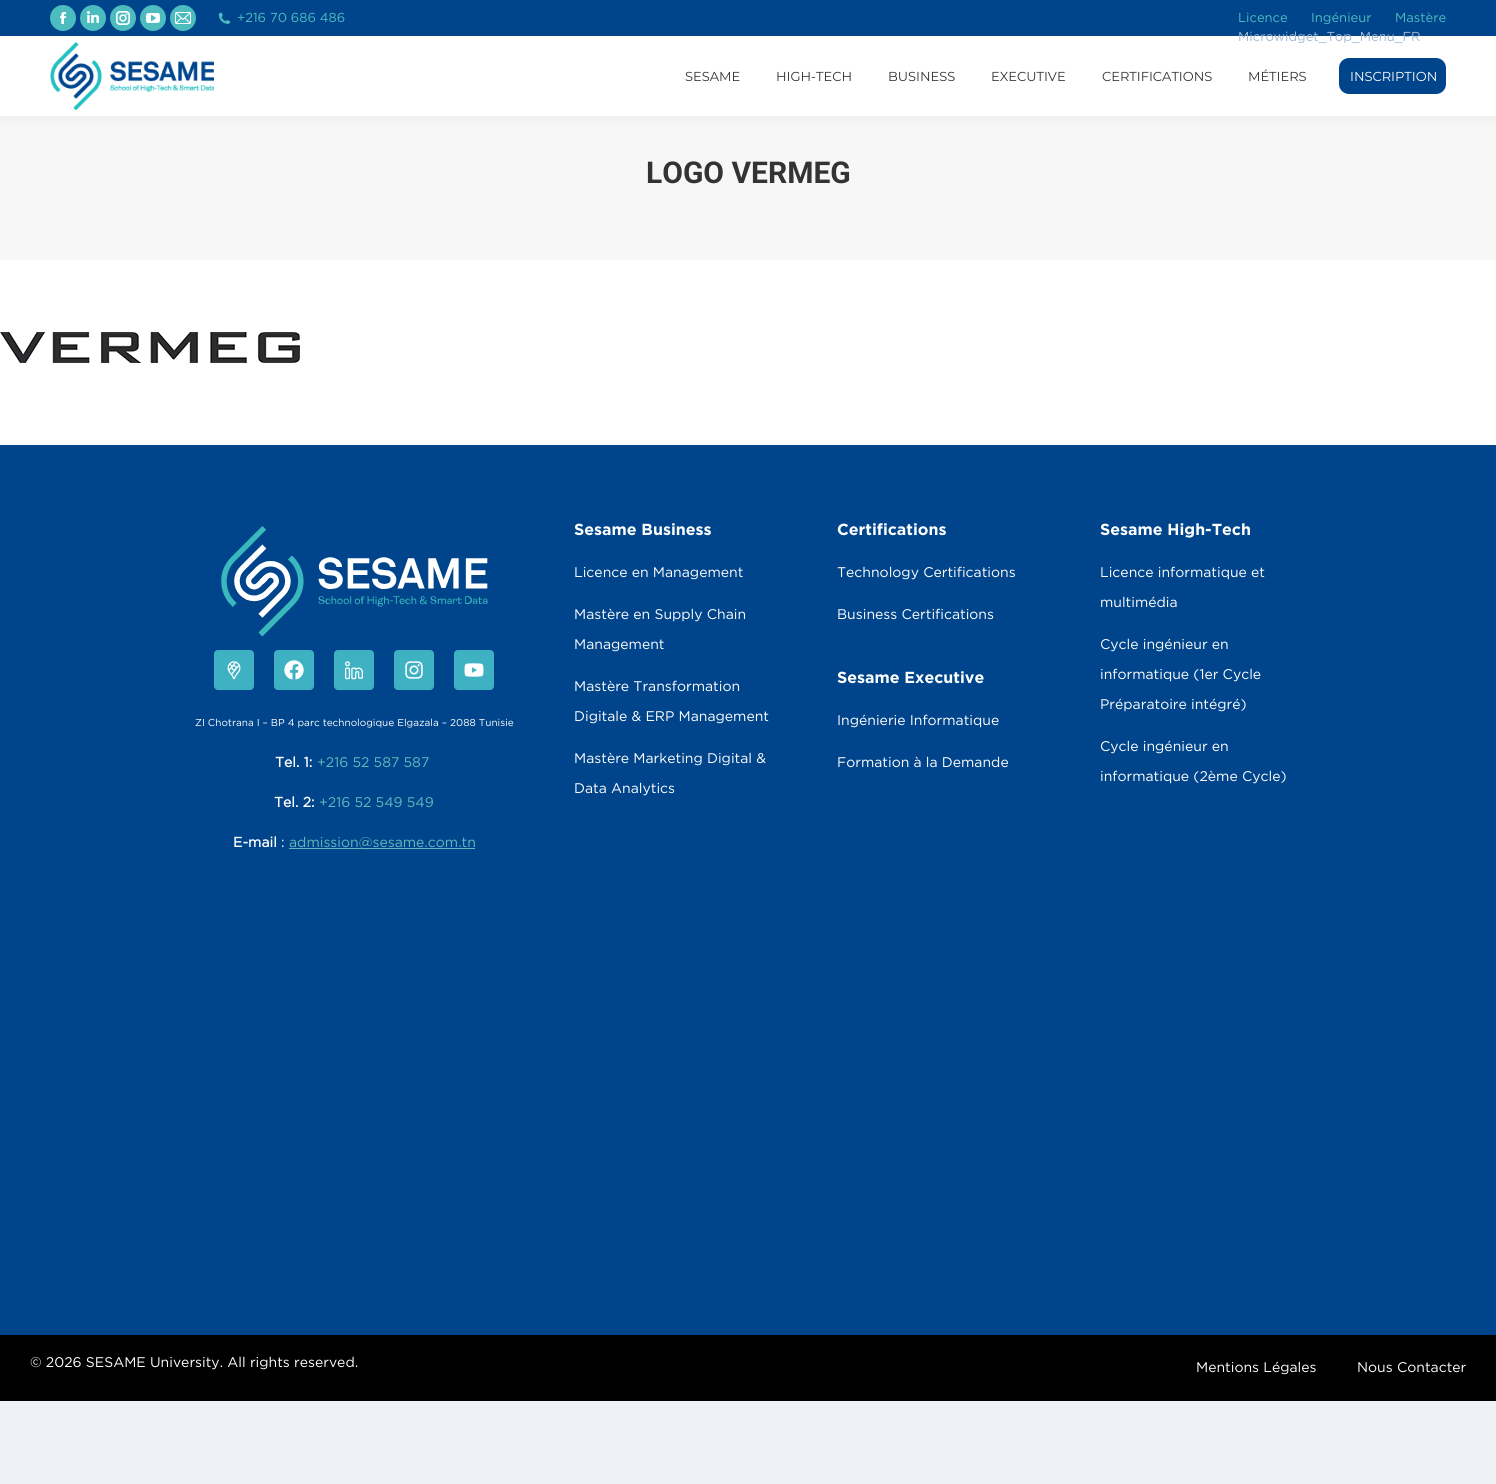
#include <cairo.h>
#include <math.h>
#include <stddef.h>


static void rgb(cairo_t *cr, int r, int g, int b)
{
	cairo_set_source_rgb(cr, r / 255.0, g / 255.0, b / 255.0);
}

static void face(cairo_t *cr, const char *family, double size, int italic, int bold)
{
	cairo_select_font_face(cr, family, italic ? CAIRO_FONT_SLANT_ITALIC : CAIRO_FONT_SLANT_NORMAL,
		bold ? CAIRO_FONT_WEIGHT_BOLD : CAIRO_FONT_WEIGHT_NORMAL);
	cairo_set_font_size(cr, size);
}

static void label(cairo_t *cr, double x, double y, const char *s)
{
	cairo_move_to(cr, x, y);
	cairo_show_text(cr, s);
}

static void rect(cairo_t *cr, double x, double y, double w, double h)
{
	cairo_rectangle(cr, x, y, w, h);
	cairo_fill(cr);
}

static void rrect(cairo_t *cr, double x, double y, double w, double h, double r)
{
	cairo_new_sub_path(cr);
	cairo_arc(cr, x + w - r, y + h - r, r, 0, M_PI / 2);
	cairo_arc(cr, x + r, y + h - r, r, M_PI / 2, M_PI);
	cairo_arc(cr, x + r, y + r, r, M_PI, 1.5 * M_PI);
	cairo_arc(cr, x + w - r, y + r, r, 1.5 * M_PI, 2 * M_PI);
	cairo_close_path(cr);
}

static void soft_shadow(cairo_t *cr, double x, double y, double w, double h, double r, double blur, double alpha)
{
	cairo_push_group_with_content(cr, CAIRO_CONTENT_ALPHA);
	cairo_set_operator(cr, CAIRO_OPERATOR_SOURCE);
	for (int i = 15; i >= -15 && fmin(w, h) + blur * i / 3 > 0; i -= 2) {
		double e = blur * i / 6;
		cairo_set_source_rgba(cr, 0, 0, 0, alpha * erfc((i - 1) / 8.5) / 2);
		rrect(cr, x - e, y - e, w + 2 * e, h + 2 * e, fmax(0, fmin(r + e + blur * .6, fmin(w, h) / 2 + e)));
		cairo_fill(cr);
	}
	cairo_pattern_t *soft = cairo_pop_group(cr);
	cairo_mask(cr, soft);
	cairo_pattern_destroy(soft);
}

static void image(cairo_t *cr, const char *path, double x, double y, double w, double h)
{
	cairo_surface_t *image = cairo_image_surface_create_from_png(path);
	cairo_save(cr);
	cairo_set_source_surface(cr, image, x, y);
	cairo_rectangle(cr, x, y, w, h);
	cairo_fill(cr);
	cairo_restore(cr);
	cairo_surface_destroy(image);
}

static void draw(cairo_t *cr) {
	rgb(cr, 238, 241, 246);
	cairo_paint(cr);
	rgb(cr, 255, 255, 255);
	rect(cr, 0, 260, 1496, 185);
	rgb(cr, 247, 247, 247);
	rect(cr, 0, 116, 1496, 144);
	rgb(cr, 0, 0, 0);
	soft_shadow(cr, -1, -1, 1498, 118, 0, 7.5, 0.07);
	rgb(cr, 255, 255, 255);
	rect(cr, 0, 36, 1496, 80);
	rgb(cr, 0, 69, 139);
	rect(cr, 0, 0, 1496, 36);
	rgb(cr, 76, 188, 191);
	cairo_arc(cr, 63, 18, 13, 0, 2 * M_PI);
	cairo_fill(cr);
	image(cr, "image0.png", 60, 12, 6, 12);
	cairo_arc(cr, 93, 18, 13, 0, 2 * M_PI);
	cairo_fill(cr);
	image(cr, "image1.png", 87, 11, 12, 12);
	cairo_arc(cr, 123, 18, 13, 0, 2 * M_PI);
	cairo_fill(cr);
	image(cr, "image2.png", 116, 11, 14, 14);
	cairo_arc(cr, 153, 18, 13, 0, 2 * M_PI);
	cairo_fill(cr);
	image(cr, "image3.png", 146, 13, 14, 10);
	cairo_arc(cr, 183, 18, 13, 0, 2 * M_PI);
	cairo_fill(cr);
	image(cr, "image4.png", 175, 12, 16, 12);
	image(cr, "image5.png", 218, 12, 13, 12);
	face(cr, "Gotham", 13, 0, 0);
	label(cr, 237, 22, "+216 70 686 486");
	label(cr, 1238, 22, "Licence");
	label(cr, 1311, 22, "Ingénieur");
	label(cr, 1395, 22, "Mastère");
	rgb(cr, 160, 186, 212);
	label(cr, 1238, 41, "Microwidget_Top_Menu_FR");
	cairo_set_source_rgba(cr, 0.2, 0.2, 0.2, 0.12);
	rect(cr, 50, 35, 1396, 1);
	image(cr, "image6.png", 50, 42, 164, 68);
	face(cr, "Montserrat", 13, 0, 0);
	rgb(cr, 51, 51, 51);
	label(cr, 685, 81, "SESAME");
	label(cr, 776, 81, "HIGH-TECH");
	label(cr, 888, 81, "BUSINESS");
	label(cr, 991, 81, "EXECUTIVE");
	label(cr, 1102, 81, "CERTIFICATIONS");
	label(cr, 1248, 81, "MÉTIERS");
	rgb(cr, 0, 69, 139);
	rrect(cr, 1339, 58, 107, 36, 10);
	cairo_fill(cr);
	rgb(cr, 255, 255, 255);
	label(cr, 1350, 81, "INSCRIPTION");
	face(cr, "Roboto", 30, 0, 1);
	rgb(cr, 51, 51, 51);
	label(cr, 646, 183, "LOGO VERMEG");
	image(cr, "image7.png", 0, 332, 300, 31);
	rgb(cr, 0, 69, 139);
	rect(cr, 0, 445, 1496, 890);
	image(cr, "image8.png", 221, 526, 267, 111);
	rgb(cr, 62, 178, 194);
	rrect(cr, 214, 650, 40, 40, 4);
	cairo_fill(cr);
	image(cr, "image9.png", 227, 661, 14, 19);
	rrect(cr, 274, 650, 40, 40, 4);
	cairo_fill(cr);
	image(cr, "image10.png", 284, 660, 20, 20);
	rrect(cr, 334, 650, 40, 40, 4);
	cairo_fill(cr);
	image(cr, "image11.png", 345, 661, 18, 19);
	rrect(cr, 394, 650, 40, 40, 4);
	cairo_fill(cr);
	image(cr, "image12.png", 405, 661, 18, 18);
	rrect(cr, 454, 650, 40, 40, 4);
	cairo_fill(cr);
	image(cr, "image13.png", 464, 663, 20, 14);
	face(cr, "Gotham", 10, 0, 0);
	rgb(cr, 255, 255, 255);
	label(cr, 195, 726, "ZI Chotrana I – BP 4 parc technologique Elgazala – 2088 Tunisie");
	face(cr, "Gotham", 14, 0, 1);
	label(cr, 275, 767, "Tel. 1:");
	face(cr, "Gotham", 14, 0, 0);
	rgb(cr, 101, 182, 187);
	label(cr, 317, 767, "+216 52 587 587");
	face(cr, "Gotham", 14, 0, 1);
	rgb(cr, 255, 255, 255);
	label(cr, 274, 807, "Tel. 2:");
	face(cr, "Gotham", 14, 0, 0);
	rgb(cr, 101, 182, 187);
	label(cr, 319, 807, "+216 52 549 549");
	face(cr, "Gotham", 14, 0, 1);
	rgb(cr, 255, 255, 255);
	label(cr, 233, 847, "E-mail");
	face(cr, "Gotham", 14, 0, 0);
	label(cr, 281, 847, ":");
	rgb(cr, 101, 182, 187);
	rect(cr, 289, 848, 186, 1);
	label(cr, 289, 847, "admission@sesame.com.tn");
	face(cr, "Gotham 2", 16, 0, 1);
	rgb(cr, 255, 255, 255);
	label(cr, 574, 535, "Sesame Business");
	face(cr, "Gotham", 14, 0, 0);
	label(cr, 574, 577, "Licence en Management");
	label(cr, 574, 619, "Mastère en Supply Chain");
	label(cr, 574, 649, "Management");
	label(cr, 574, 691, "Mastère Transformation");
	label(cr, 574, 721, "Digitale & ERP Management");
	label(cr, 574, 763, "Mastère Marketing Digital &");
	label(cr, 574, 793, "Data Analytics");
	face(cr, "Gotham 2", 16, 0, 1);
	label(cr, 837, 535, "Certifications");
	face(cr, "Gotham", 14, 0, 0);
	label(cr, 837, 577, "Technology Certifications");
	label(cr, 837, 619, "Business Certifications");
	face(cr, "Gotham 2", 16, 0, 1);
	label(cr, 837, 683, "Sesame Executive");
	face(cr, "Gotham", 14, 0, 0);
	label(cr, 837, 725, "Ingénierie Informatique");
	label(cr, 837, 767, "Formation à la Demande");
	face(cr, "Gotham 2", 16, 0, 1);
	label(cr, 1100, 535, "Sesame High-Tech");
	face(cr, "Gotham", 14, 0, 0);
	label(cr, 1100, 577, "Licence informatique et");
	label(cr, 1100, 607, "multimédia");
	label(cr, 1100, 649, "Cycle ingénieur en");
	label(cr, 1100, 679, "informatique (1er Cycle");
	label(cr, 1100, 709, "Préparatoire intégré)");
	label(cr, 1100, 751, "Cycle ingénieur en");
	label(cr, 1100, 781, "informatique (2ème Cycle)");
	rgb(cr, 0, 0, 0);
	rect(cr, 0, 1335, 1496, 66);
	rgb(cr, 255, 255, 255);
	label(cr, 30, 1367, "© 2026 SESAME University. All rights reserved.");
	label(cr, 1196, 1372, "Mentions Légales");
	label(cr, 1357, 1372, "Nous Contacter");
}

int main(void) {
	cairo_surface_t *surface = cairo_image_surface_create(CAIRO_FORMAT_RGB24, 1496, 1484);
	cairo_t *cr = cairo_create(surface);
	cairo_font_options_t *options = cairo_font_options_create();
	cairo_font_options_set_hint_metrics(options, CAIRO_HINT_METRICS_OFF);
	cairo_font_options_set_hint_style(options, CAIRO_HINT_STYLE_NONE);
	cairo_set_font_options(cr, options);
	cairo_set_miter_limit(cr, 4);
	draw(cr);
	cairo_surface_write_to_png(surface, "render.png");
	cairo_font_options_destroy(options);
	cairo_destroy(cr);
	cairo_surface_destroy(surface);
	return 0;
}
